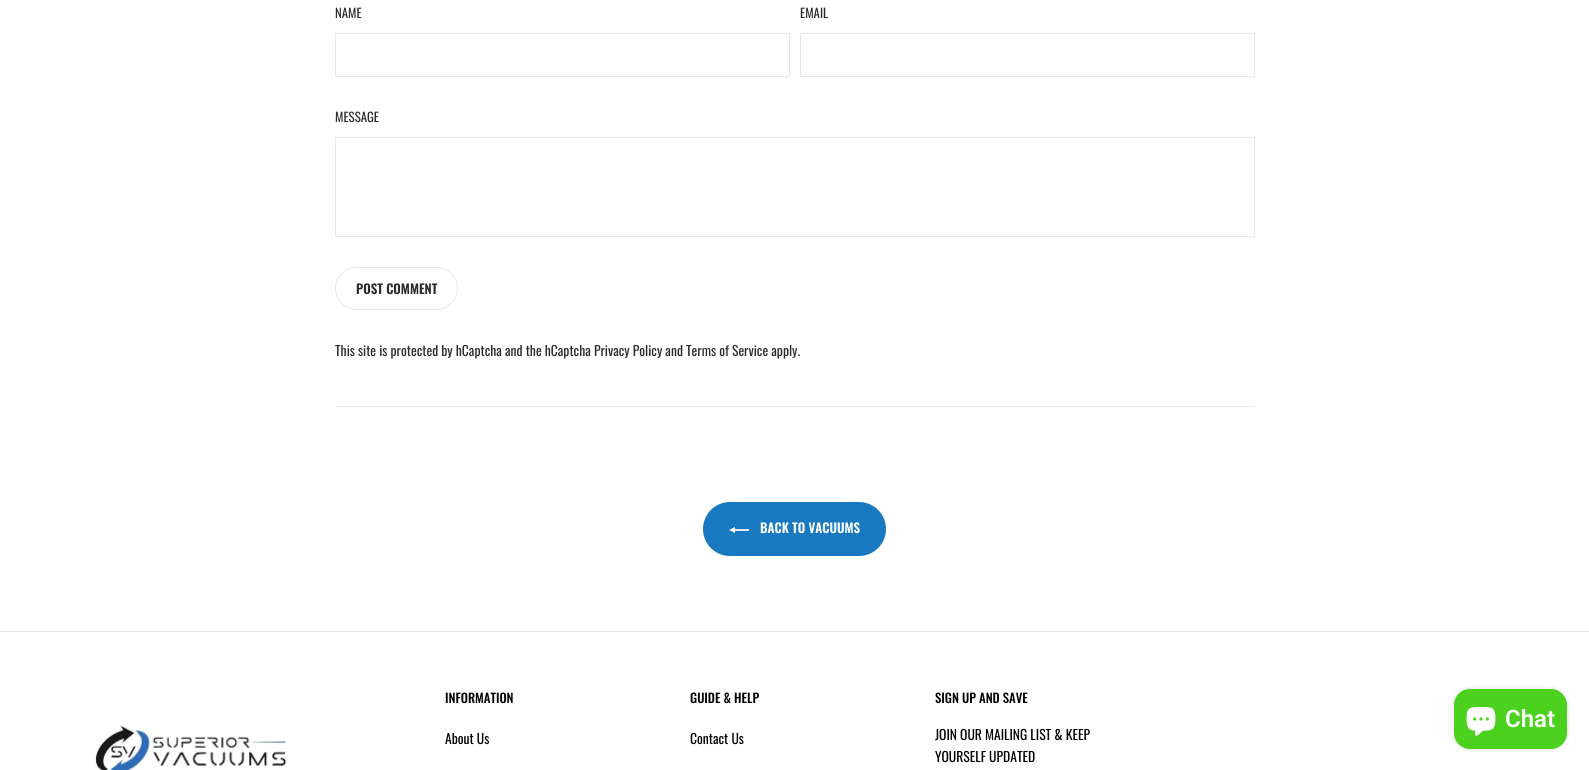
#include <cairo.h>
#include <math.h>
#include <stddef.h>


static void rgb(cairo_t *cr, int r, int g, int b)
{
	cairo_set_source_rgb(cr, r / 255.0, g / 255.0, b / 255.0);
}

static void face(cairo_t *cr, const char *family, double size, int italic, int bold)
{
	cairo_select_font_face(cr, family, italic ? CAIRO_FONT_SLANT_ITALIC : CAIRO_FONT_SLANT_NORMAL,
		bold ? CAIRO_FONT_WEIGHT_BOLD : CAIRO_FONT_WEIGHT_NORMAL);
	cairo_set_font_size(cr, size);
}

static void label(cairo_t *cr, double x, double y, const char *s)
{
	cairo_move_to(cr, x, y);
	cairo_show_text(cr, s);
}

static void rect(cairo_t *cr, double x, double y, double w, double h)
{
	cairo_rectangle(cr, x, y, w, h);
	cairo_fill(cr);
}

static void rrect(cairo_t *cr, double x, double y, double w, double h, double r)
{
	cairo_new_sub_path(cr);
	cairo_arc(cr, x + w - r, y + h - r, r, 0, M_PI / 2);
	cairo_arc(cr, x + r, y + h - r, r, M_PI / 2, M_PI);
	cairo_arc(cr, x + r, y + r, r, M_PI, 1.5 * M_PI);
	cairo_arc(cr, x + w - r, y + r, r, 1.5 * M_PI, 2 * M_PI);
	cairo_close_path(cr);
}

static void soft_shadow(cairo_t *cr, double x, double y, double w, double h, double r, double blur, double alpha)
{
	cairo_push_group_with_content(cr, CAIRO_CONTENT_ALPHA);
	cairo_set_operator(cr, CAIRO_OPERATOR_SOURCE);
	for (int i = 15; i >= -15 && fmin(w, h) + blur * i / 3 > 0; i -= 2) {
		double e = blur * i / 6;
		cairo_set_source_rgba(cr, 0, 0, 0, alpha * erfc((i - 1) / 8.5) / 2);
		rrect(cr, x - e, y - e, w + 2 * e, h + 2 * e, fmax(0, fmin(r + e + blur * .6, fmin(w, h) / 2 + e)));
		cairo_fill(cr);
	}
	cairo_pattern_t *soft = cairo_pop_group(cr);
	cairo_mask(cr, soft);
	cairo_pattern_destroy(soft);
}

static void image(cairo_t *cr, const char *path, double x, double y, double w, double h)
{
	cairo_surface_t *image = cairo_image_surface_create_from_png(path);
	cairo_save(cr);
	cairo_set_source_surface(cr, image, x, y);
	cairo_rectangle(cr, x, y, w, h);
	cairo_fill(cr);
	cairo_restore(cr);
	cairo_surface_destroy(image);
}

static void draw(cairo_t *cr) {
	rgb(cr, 255, 255, 255);
	cairo_paint(cr);
	face(cr, "Oswald", 12.75, 0, 0);
	rgb(cr, 43, 43, 43);
	label(cr, 335, 18, "NAME");
	cairo_rectangle(cr, 335.5, 33.5, 454, 43);
	rgb(cr, 232, 232, 225);
	cairo_set_line_width(cr, 1);
	cairo_stroke(cr);
	rgb(cr, 43, 43, 43);
	label(cr, 800, 18, "EMAIL");
	cairo_rectangle(cr, 800.5, 33.5, 454, 43);
	rgb(cr, 232, 232, 225);
	cairo_stroke(cr);
	rgb(cr, 43, 43, 43);
	label(cr, 335, 122, "MESSAGE");
	cairo_rectangle(cr, 335.5, 137.5, 919, 99);
	rgb(cr, 232, 232, 225);
	cairo_stroke(cr);
	rrect(cr, 335.5, 267.5, 122, 42, 21);
	cairo_stroke(cr);
	face(cr, "Oswald SemiBold", 13, 0, 0);
	rgb(cr, 43, 43, 43);
	label(cr, 356, 294, "POST COMMENT");
	face(cr, "Oswald", 13.6, 0, 0);
	label(cr, 335, 356, "This site is protected by hCaptcha and the hCaptcha Privacy Policy and Terms of Service apply.");
	rgb(cr, 232, 232, 225);
	rect(cr, 335, 406, 920, 1);
	rgb(cr, 24, 121, 192);
	rrect(cr, 703, 502, 183, 54, 27);
	cairo_fill(cr);
	image(cr, "image0.png", 729, 527, 20, 6);
	face(cr, "Oswald SemiBold", 13, 0, 0);
	rgb(cr, 255, 255, 255);
	label(cr, 760, 533, "BACK TO VACUUMS");
	rgb(cr, 232, 232, 225);
	rect(cr, 0, 631, 1589, 1);
	image(cr, "image1.png", 95, 725, 192, 45);
	face(cr, "Oswald Medium", 12.75, 0, 0);
	rgb(cr, 0, 0, 0);
	label(cr, 445, 703, "INFORMATION");
	face(cr, "Oswald", 13.6, 0, 0);
	label(cr, 445, 744, "About Us");
	face(cr, "Oswald Medium", 12.75, 0, 0);
	label(cr, 690, 703, "GUIDE & HELP");
	face(cr, "Oswald", 13.6, 0, 0);
	label(cr, 690, 744, "Contact Us");
	face(cr, "Oswald Medium", 12.75, 0, 0);
	label(cr, 935, 703, "SIGN UP AND SAVE");
	face(cr, "Oswald", 13.6, 0, 0);
	label(cr, 935, 740, "JOIN OUR MAILING LIST & KEEP");
	label(cr, 935, 762, "YOURSELF UPDATED");
	rgb(cr, 0, 0, 0);
	soft_shadow(cr, 1454, 689, 113, 60, 16, 2.5, 0.15);
	rgb(cr, 76, 209, 31);
	rrect(cr, 1454, 689, 113, 60, 16);
	cairo_fill(cr);
	image(cr, "image2.png", 1466, 707, 30, 29);
	face(cr, "Roboto SemiBold", 24, 0, 0);
	rgb(cr, 255, 255, 255);
	label(cr, 1505, 727, "Chat");
}

int main(void) {
	cairo_surface_t *surface = cairo_image_surface_create(CAIRO_FORMAT_RGB24, 1589, 770);
	cairo_t *cr = cairo_create(surface);
	cairo_font_options_t *options = cairo_font_options_create();
	cairo_font_options_set_hint_metrics(options, CAIRO_HINT_METRICS_OFF);
	cairo_font_options_set_hint_style(options, CAIRO_HINT_STYLE_NONE);
	cairo_set_font_options(cr, options);
	cairo_set_miter_limit(cr, 4);
	draw(cr);
	cairo_surface_write_to_png(surface, "render.png");
	cairo_font_options_destroy(options);
	cairo_destroy(cr);
	cairo_surface_destroy(surface);
	return 0;
}
